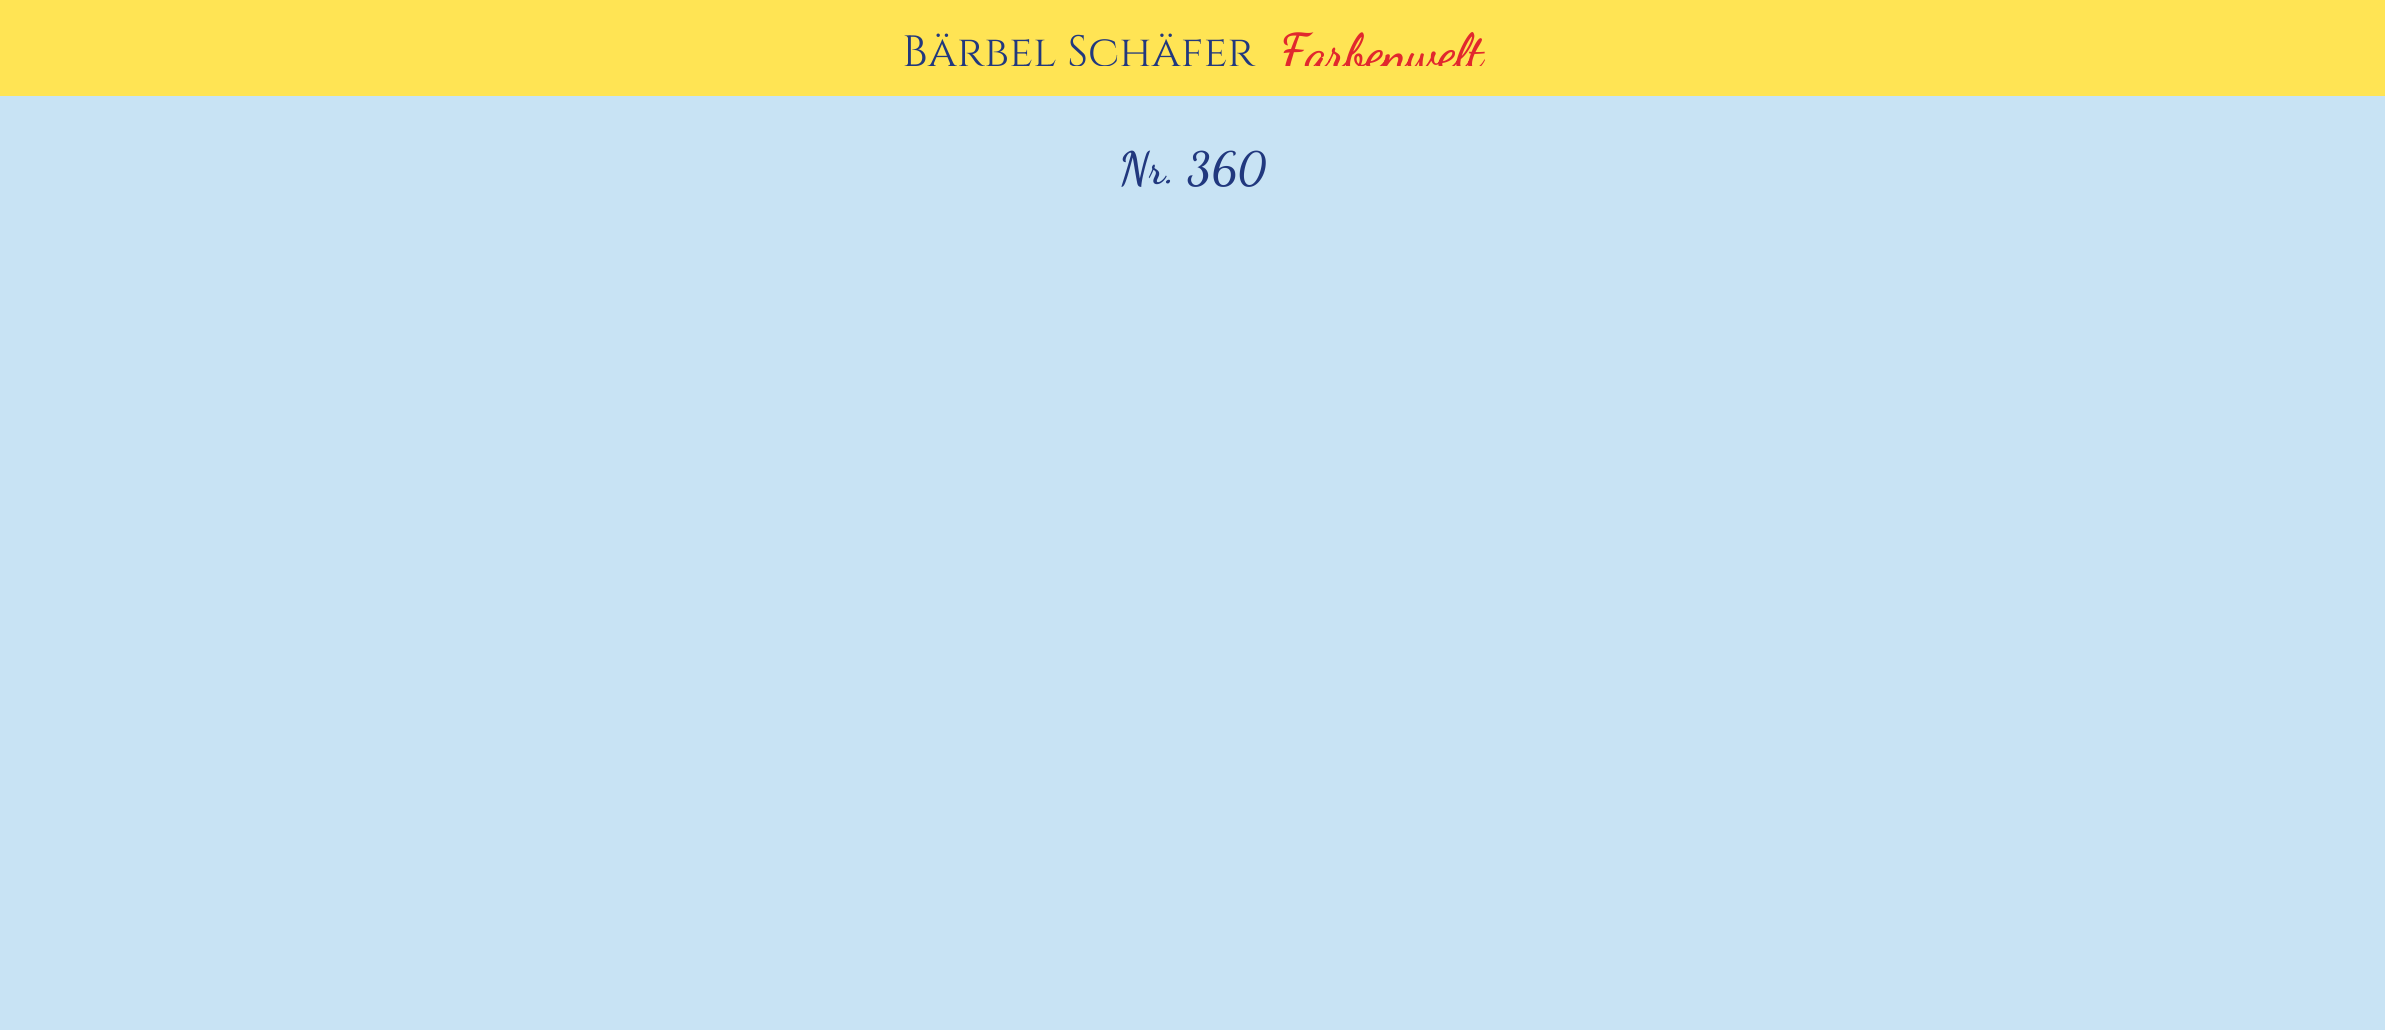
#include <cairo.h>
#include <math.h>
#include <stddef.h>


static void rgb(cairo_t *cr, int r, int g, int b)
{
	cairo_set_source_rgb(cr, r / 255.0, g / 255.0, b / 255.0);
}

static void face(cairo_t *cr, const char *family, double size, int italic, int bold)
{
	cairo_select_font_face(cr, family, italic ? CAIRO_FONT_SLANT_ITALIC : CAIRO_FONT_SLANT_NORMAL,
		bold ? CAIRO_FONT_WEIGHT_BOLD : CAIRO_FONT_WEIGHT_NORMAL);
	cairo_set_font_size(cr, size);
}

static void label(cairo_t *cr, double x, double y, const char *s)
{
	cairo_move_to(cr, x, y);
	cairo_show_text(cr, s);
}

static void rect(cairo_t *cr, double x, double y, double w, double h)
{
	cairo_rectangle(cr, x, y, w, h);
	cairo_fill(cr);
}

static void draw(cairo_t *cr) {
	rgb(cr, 255, 228, 84);
	cairo_paint(cr);
	face(cr, "Cinzel", 43.75, 0, 0);
	rgb(cr, 33, 56, 126);
	label(cr, 902, 66, "Bärbel Schäfer");
	face(cr, "Dancing Script", 50, 0, 1);
	rgb(cr, 225, 40, 45);
	label(cr, 1280, 68, "Farbenwelt");
	rgb(cr, 255, 228, 84);
	rect(cr, 1073, 66, 408, 7);
	rgb(cr, 200, 227, 244);
	rect(cr, 0, 96, 2385, 934);
	face(cr, "Dancing Script SemiBold", 45, 0, 0);
	rgb(cr, 33, 56, 126);
	label(cr, 1119, 183, "Nr. 360");
}

int main(void) {
	cairo_surface_t *surface = cairo_image_surface_create(CAIRO_FORMAT_RGB24, 2385, 1030);
	cairo_t *cr = cairo_create(surface);
	cairo_font_options_t *options = cairo_font_options_create();
	cairo_font_options_set_hint_metrics(options, CAIRO_HINT_METRICS_OFF);
	cairo_font_options_set_hint_style(options, CAIRO_HINT_STYLE_NONE);
	cairo_set_font_options(cr, options);
	cairo_set_miter_limit(cr, 4);
	draw(cr);
	cairo_surface_write_to_png(surface, "render.png");
	cairo_font_options_destroy(options);
	cairo_destroy(cr);
	cairo_surface_destroy(surface);
	return 0;
}
